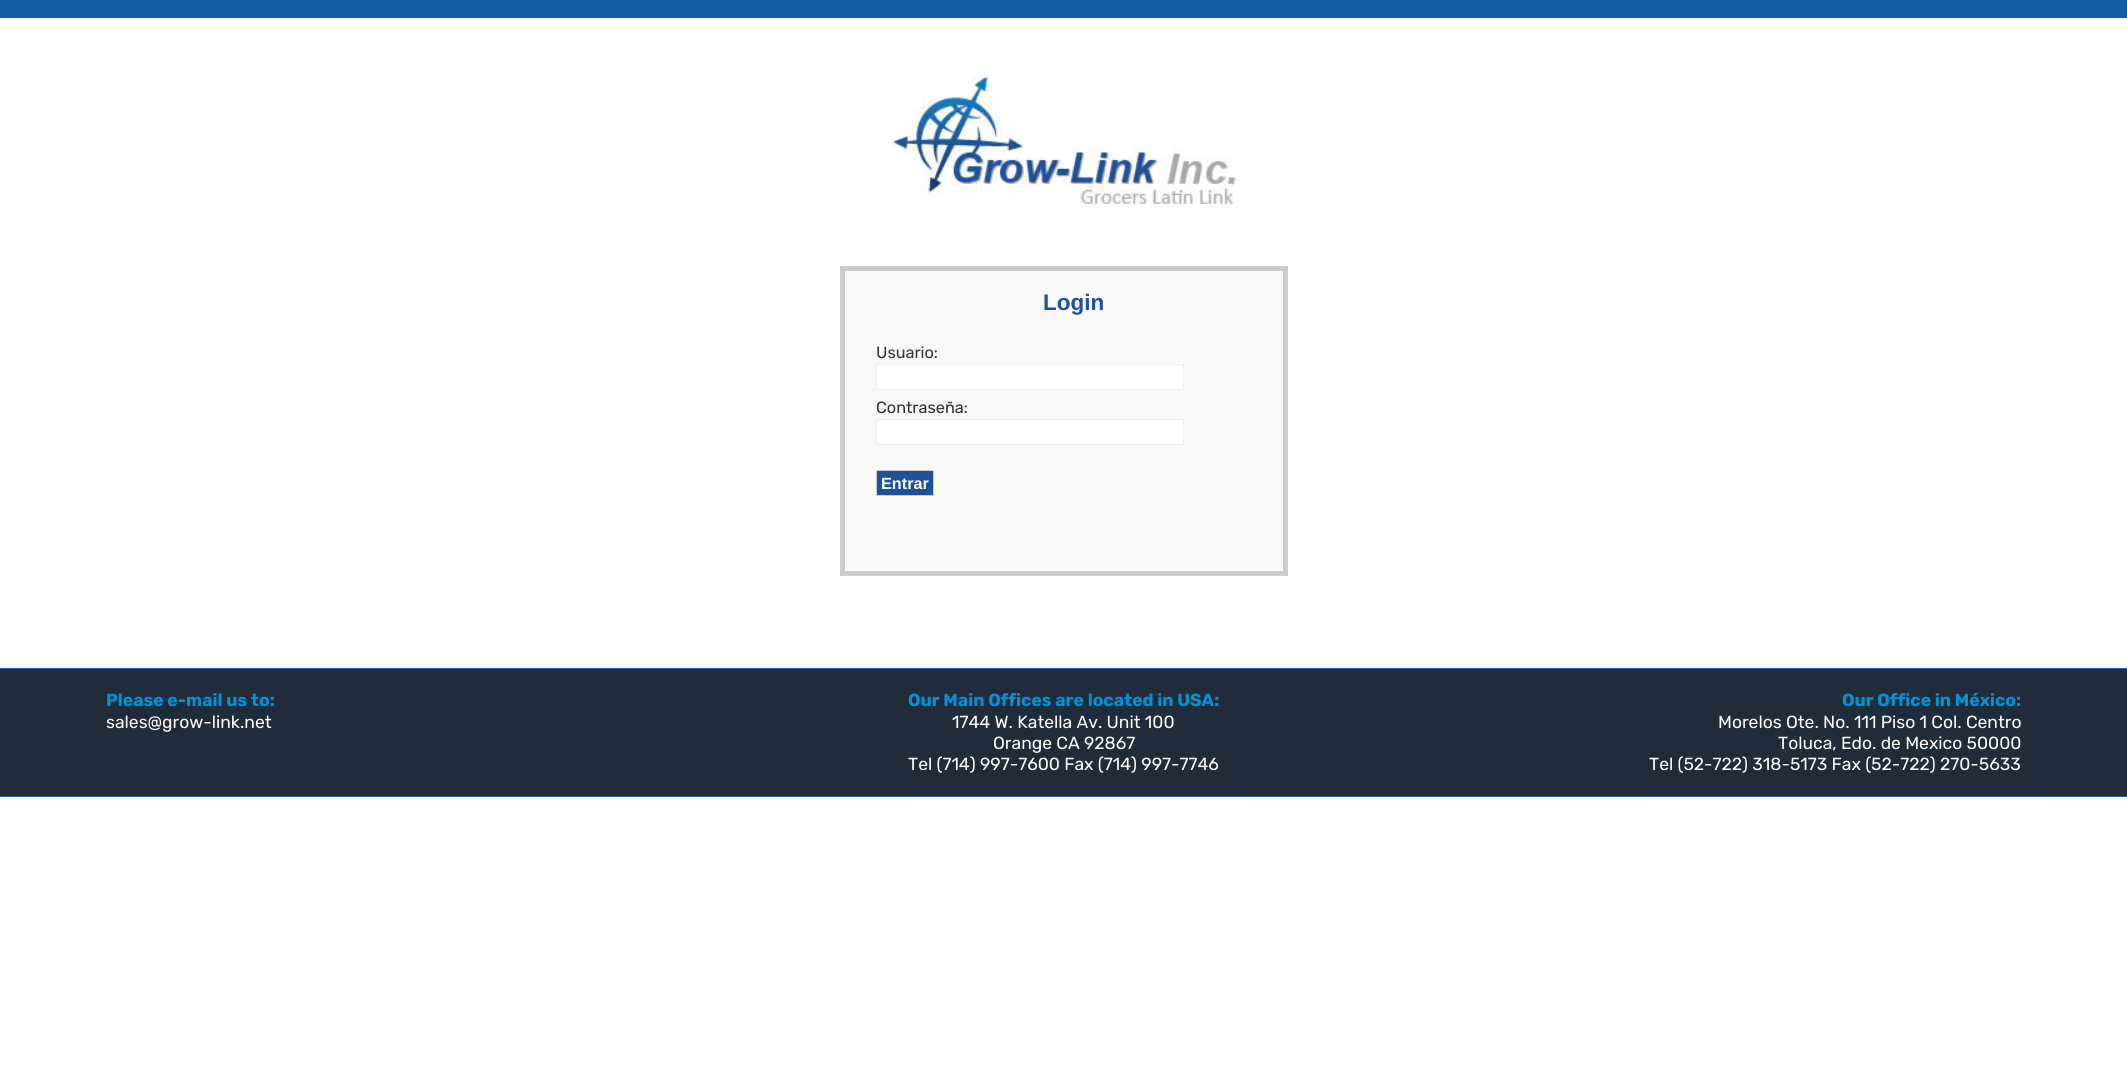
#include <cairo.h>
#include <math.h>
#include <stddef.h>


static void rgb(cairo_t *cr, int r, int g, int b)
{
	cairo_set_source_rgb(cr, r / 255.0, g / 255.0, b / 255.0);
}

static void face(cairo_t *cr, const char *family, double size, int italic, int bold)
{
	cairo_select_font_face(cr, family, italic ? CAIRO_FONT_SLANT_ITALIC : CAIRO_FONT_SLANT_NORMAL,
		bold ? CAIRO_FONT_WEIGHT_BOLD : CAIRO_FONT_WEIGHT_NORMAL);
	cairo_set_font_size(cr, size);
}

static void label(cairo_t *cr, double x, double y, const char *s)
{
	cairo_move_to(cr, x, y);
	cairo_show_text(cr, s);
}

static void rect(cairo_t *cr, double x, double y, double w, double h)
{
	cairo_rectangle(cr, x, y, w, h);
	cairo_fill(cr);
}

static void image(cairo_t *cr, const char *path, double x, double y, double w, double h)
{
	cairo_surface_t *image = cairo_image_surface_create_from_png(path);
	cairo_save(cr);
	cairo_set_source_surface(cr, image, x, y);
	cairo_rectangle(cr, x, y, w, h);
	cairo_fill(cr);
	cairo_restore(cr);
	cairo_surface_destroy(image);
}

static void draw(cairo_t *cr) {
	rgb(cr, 255, 255, 255);
	cairo_paint(cr);
	rgb(cr, 19, 93, 162);
	rect(cr, 0, 0, 2127, 18);
	image(cr, "image0.png", 892, 77, 343, 127);
	rgb(cr, 249, 249, 249);
	cairo_rectangle(cr, 842.5, 268.5, 443, 305);
	cairo_fill_preserve(cr);
	rgb(cr, 204, 204, 204);
	cairo_set_line_width(cr, 5);
	cairo_stroke(cr);
	face(cr, "Liberation Sans", 22.5, 0, 1);
	rgb(cr, 29, 81, 154);
	label(cr, 1043, 310, "Login");
	face(cr, "Rubik", 16.25, 0, 0);
	rgb(cr, 51, 51, 51);
	label(cr, 876, 358, "Usuario:");
	rgb(cr, 255, 255, 255);
	cairo_rectangle(cr, 876.5, 364.5, 307, 25);
	cairo_fill_preserve(cr);
	rgb(cr, 238, 238, 238);
	cairo_set_line_width(cr, 1);
	cairo_stroke(cr);
	rgb(cr, 51, 51, 51);
	label(cr, 876, 413, "Contraseña:");
	rgb(cr, 255, 255, 255);
	cairo_rectangle(cr, 876.5, 419.5, 307, 25);
	cairo_fill_preserve(cr);
	rgb(cr, 238, 238, 238);
	cairo_stroke(cr);
	rgb(cr, 29, 81, 154);
	cairo_rectangle(cr, 876.5, 470.5, 57, 25);
	cairo_fill_preserve(cr);
	rgb(cr, 204, 204, 204);
	cairo_stroke(cr);
	face(cr, "Liberation Sans", 16.25, 0, 1);
	rgb(cr, 255, 255, 255);
	label(cr, 881, 489, "Entrar");
	rgb(cr, 31, 92, 162);
	rect(cr, 0, 668, 2127, 129);
	rgb(cr, 32, 44, 58);
	rect(cr, 0, 669, 2127, 127);
	face(cr, "Rubik", 17.5, 0, 1);
	rgb(cr, 0, 147, 217);
	label(cr, 106, 706, "Please e-mail us to:");
	face(cr, "Rubik", 17.5, 0, 0);
	rgb(cr, 255, 255, 255);
	label(cr, 106, 728, "sales@grow-link.net");
	face(cr, "Rubik", 17.5, 0, 1);
	rgb(cr, 0, 147, 217);
	label(cr, 908, 706, "Our Main Offices are located in USA:");
	face(cr, "Rubik", 17.5, 0, 0);
	rgb(cr, 255, 255, 255);
	label(cr, 952, 728, "1744 W. Katella Av. Unit 100");
	label(cr, 993, 749, "Orange CA 92867");
	label(cr, 908, 770, "Tel (714) 997-7600 Fax (714) 997-7746");
	face(cr, "Rubik", 17.5, 0, 1);
	rgb(cr, 0, 147, 217);
	label(cr, 1842, 706, "Our Office in México:");
	face(cr, "Rubik", 17.5, 0, 0);
	rgb(cr, 255, 255, 255);
	label(cr, 1718, 728, "Morelos Ote. No. 111 Piso 1 Col. Centro");
	label(cr, 1778, 749, "Toluca, Edo. de Mexico 50000");
	label(cr, 1649, 770, "Tel (52-722) 318-5173 Fax (52-722) 270-5633");
}

int main(void) {
	cairo_surface_t *surface = cairo_image_surface_create(CAIRO_FORMAT_RGB24, 2127, 1084);
	cairo_t *cr = cairo_create(surface);
	cairo_font_options_t *options = cairo_font_options_create();
	cairo_font_options_set_hint_metrics(options, CAIRO_HINT_METRICS_OFF);
	cairo_font_options_set_hint_style(options, CAIRO_HINT_STYLE_NONE);
	cairo_set_font_options(cr, options);
	cairo_set_miter_limit(cr, 4);
	draw(cr);
	cairo_surface_write_to_png(surface, "render.png");
	cairo_font_options_destroy(options);
	cairo_destroy(cr);
	cairo_surface_destroy(surface);
	return 0;
}
